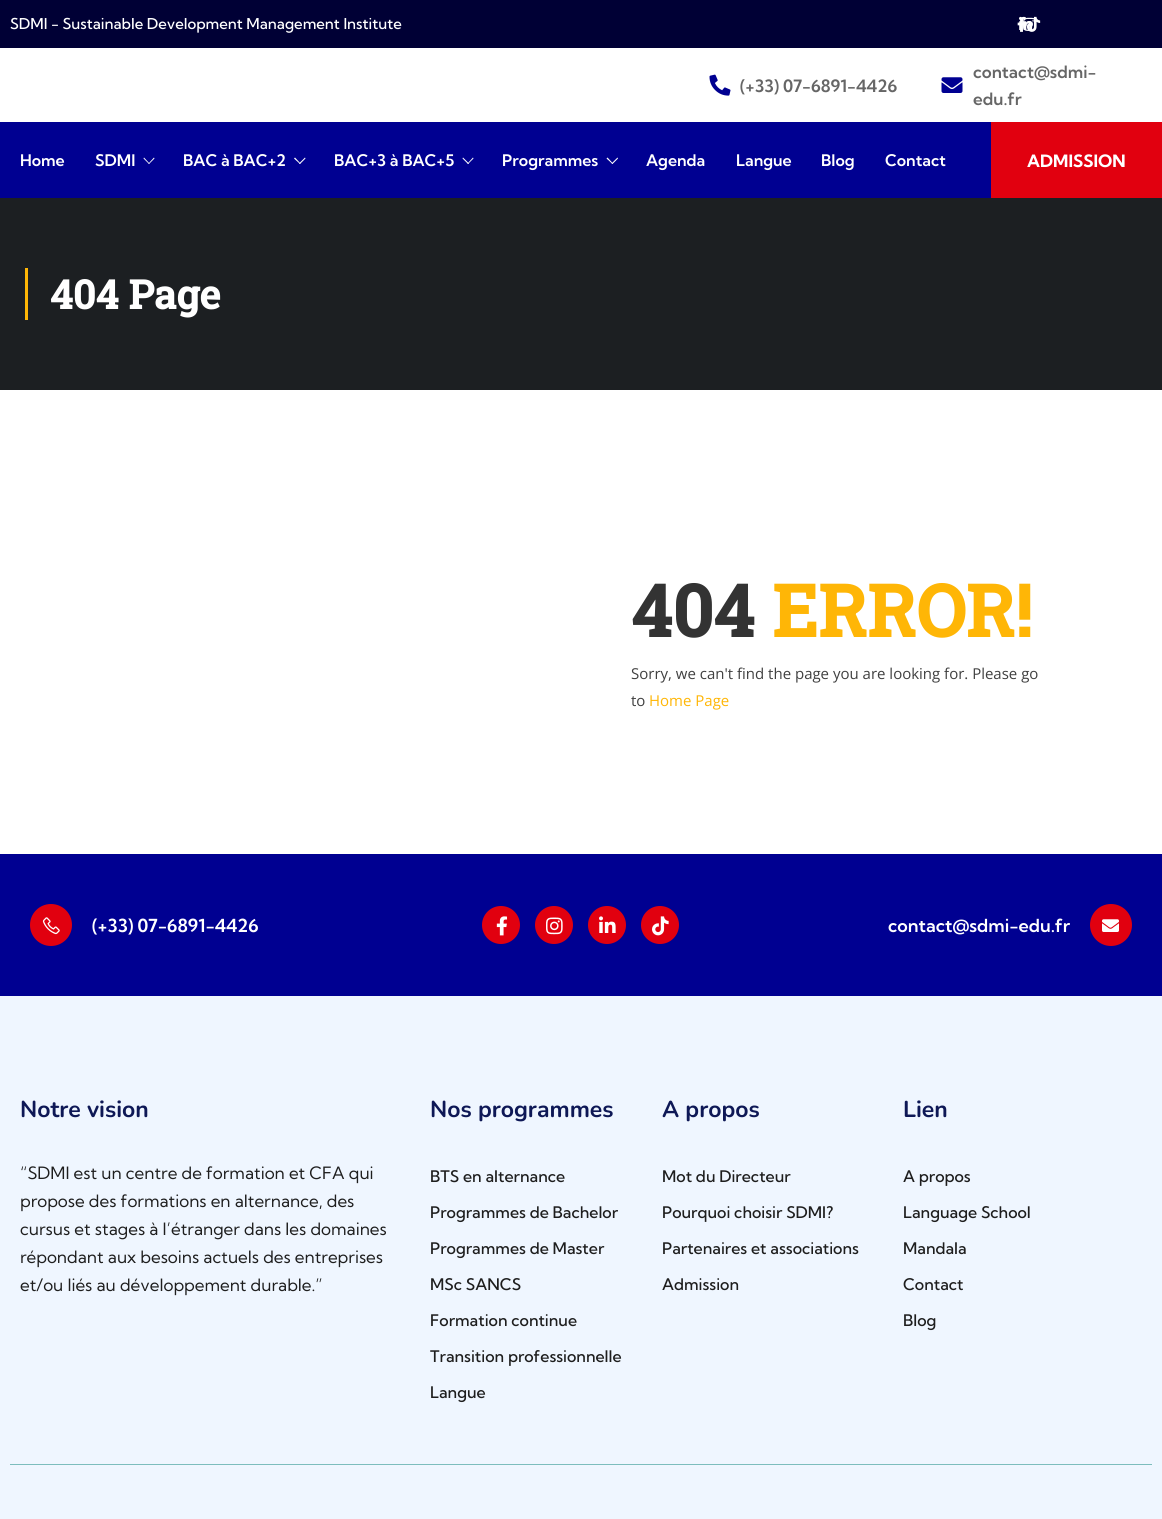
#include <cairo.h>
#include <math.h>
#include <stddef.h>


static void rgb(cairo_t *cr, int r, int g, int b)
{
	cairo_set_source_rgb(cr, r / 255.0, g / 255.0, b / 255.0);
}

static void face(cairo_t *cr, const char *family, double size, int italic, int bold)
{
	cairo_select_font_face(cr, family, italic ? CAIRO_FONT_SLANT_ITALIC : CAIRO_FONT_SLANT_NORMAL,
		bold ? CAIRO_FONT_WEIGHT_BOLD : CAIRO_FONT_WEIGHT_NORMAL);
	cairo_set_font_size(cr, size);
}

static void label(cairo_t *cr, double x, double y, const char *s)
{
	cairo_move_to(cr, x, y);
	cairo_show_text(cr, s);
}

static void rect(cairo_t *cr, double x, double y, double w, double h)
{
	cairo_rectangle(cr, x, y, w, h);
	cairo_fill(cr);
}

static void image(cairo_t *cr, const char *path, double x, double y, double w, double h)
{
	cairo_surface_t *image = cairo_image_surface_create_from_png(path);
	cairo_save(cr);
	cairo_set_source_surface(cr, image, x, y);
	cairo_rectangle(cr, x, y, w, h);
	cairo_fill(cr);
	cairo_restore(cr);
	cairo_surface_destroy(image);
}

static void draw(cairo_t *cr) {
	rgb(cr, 255, 255, 255);
	cairo_paint(cr);
	rgb(cr, 0, 0, 53);
	rect(cr, 0, 0, 1162, 48);
	face(cr, "Kumbh Sans Medium", 15, 0, 0);
	rgb(cr, 255, 255, 255);
	label(cr, 10, 29, "SDMI - Sustainable Development Management Institute");
	image(cr, "image0.png", 1017, 16, 9, 16);
	image(cr, "image1.png", 1019, 16, 14, 14);
	image(cr, "image3.png", 1023, 17, 14, 14);
	image(cr, "image2.png", 1027, 16, 14, 16);
	image(cr, "image4.png", 709, 74, 22, 22);
	face(cr, "Kumbh Sans SemiBold", 17, 0, 0);
	rgb(cr, 102, 102, 102);
	label(cr, 740, 92, "(+33) 07-6891-4426");
	image(cr, "image5.png", 941, 77, 22, 16);
	label(cr, 973, 78, "contact@sdmi-");
	label(cr, 973, 105, "edu.fr");
	rgb(cr, 0, 0, 145);
	rect(cr, 0, 122, 991, 76);
	face(cr, "Kumbh Sans SemiBold", 16, 0, 0);
	rgb(cr, 255, 255, 255);
	label(cr, 20, 166, "Home");
	label(cr, 95, 166, "SDMI");
	cairo_new_path(cr);
	cairo_move_to(cr, 154.5, 158.5);
	cairo_line_to(cr, 149, 164);
	cairo_line_to(cr, 148.5, 163.5);
	cairo_line_to(cr, 154, 157.5);
	cairo_close_path(cr);
	cairo_fill(cr);
	cairo_new_path(cr);
	cairo_move_to(cr, 149.5, 163.5);
	cairo_line_to(cr, 149, 164);
	cairo_line_to(cr, 143.5, 158.5);
	cairo_line_to(cr, 144, 157.5);
	cairo_close_path(cr);
	cairo_fill(cr);
	label(cr, 183, 166, "BAC à BAC+2");
	cairo_new_path(cr);
	cairo_move_to(cr, 305.5, 158.5);
	cairo_line_to(cr, 300, 164);
	cairo_line_to(cr, 299, 163.5);
	cairo_line_to(cr, 305, 157.5);
	cairo_close_path(cr);
	cairo_fill(cr);
	cairo_new_path(cr);
	cairo_move_to(cr, 300.5, 163.5);
	cairo_line_to(cr, 300, 164);
	cairo_line_to(cr, 294, 158.5);
	cairo_line_to(cr, 295, 157.5);
	cairo_close_path(cr);
	cairo_fill(cr);
	label(cr, 334, 166, "BAC+3 à BAC+5");
	cairo_new_path(cr);
	cairo_move_to(cr, 473.5, 158.5);
	cairo_line_to(cr, 468, 164);
	cairo_line_to(cr, 467.5, 163.5);
	cairo_line_to(cr, 473, 157.5);
	cairo_close_path(cr);
	cairo_fill(cr);
	cairo_new_path(cr);
	cairo_move_to(cr, 469, 163.5);
	cairo_line_to(cr, 468, 164);
	cairo_line_to(cr, 462.5, 158.5);
	cairo_line_to(cr, 463, 157.5);
	cairo_close_path(cr);
	cairo_fill(cr);
	label(cr, 502, 166, "Programmes");
	cairo_new_path(cr);
	cairo_move_to(cr, 618, 158.5);
	cairo_line_to(cr, 612.5, 164);
	cairo_line_to(cr, 611.5, 163.5);
	cairo_line_to(cr, 617.5, 157.5);
	cairo_close_path(cr);
	cairo_fill(cr);
	cairo_new_path(cr);
	cairo_move_to(cr, 613, 163.5);
	cairo_line_to(cr, 612.5, 164);
	cairo_line_to(cr, 606.5, 158.5);
	cairo_line_to(cr, 607.5, 157.5);
	cairo_close_path(cr);
	cairo_fill(cr);
	label(cr, 646, 166, "Agenda");
	label(cr, 736, 166, "Langue");
	label(cr, 821, 166, "Blog");
	label(cr, 885, 166, "Contact");
	rgb(cr, 225, 0, 15);
	rect(cr, 991, 122, 171, 76);
	face(cr, "Kumbh Sans", 17, 0, 1);
	rgb(cr, 255, 255, 255);
	label(cr, 1027, 167, "ADMISSION");
	rgb(cr, 28, 31, 34);
	rect(cr, 0, 198, 1162, 192);
	rgb(cr, 255, 182, 6);
	rect(cr, 25, 268, 3, 52);
	face(cr, "Roboto Slab", 40, 0, 1);
	rgb(cr, 255, 255, 255);
	label(cr, 50, 309, "404 Page");
	face(cr, "Roboto Slab", 72, 0, 1);
	rgb(cr, 51, 51, 51);
	label(cr, 631, 637, "404");
	rgb(cr, 255, 182, 6);
	label(cr, 772, 637, "ERROR!");
	face(cr, "Open Sans", 15, 0, 0);
	rgb(cr, 64, 64, 64);
	label(cr, 631, 679, "Sorry, we can't find the page you are looking for. Please go");
	label(cr, 631, 706, "to");
	rgb(cr, 255, 182, 6);
	label(cr, 649, 706, "Home Page");
	rgb(cr, 0, 0, 145);
	rect(cr, 0, 854, 1162, 142);
	rgb(cr, 225, 0, 15);
	cairo_new_path(cr);
	cairo_arc(cr, 51, 925, 21, 0, 2 * M_PI);
	cairo_fill(cr);
	image(cr, "image6.png", 42, 917, 18, 18);
	face(cr, "Kumbh Sans SemiBold", 18, 0, 0);
	rgb(cr, 255, 255, 255);
	label(cr, 92, 932, "(+33) 07-6891-4426");
	rgb(cr, 225, 0, 15);
	cairo_new_path(cr);
	cairo_arc(cr, 501, 925, 19, 0, 2 * M_PI);
	cairo_fill(cr);
	image(cr, "image7.png", 496, 916, 12, 20);
	cairo_arc(cr, 554, 925, 19, 0, 2 * M_PI);
	cairo_fill(cr);
	image(cr, "image8.png", 546, 917, 17, 18);
	cairo_arc(cr, 607, 925, 19, 0, 2 * M_PI);
	cairo_fill(cr);
	image(cr, "image9.png", 599, 916, 17, 17);
	cairo_arc(cr, 660, 925, 19, 0, 2 * M_PI);
	cairo_fill(cr);
	image(cr, "image10.png", 652, 916, 17, 20);
	rgb(cr, 255, 255, 255);
	label(cr, 888, 932, "contact@sdmi-edu.fr");
	rgb(cr, 225, 0, 15);
	cairo_new_path(cr);
	cairo_arc(cr, 1111, 925, 21, 0, 2 * M_PI);
	cairo_fill(cr);
	image(cr, "image11.png", 1102, 919, 17, 13);
	rgb(cr, 239, 246, 255);
	rect(cr, 0, 996, 1162, 523);
	face(cr, "Nunito", 23, 0, 1);
	rgb(cr, 14, 24, 86);
	label(cr, 20, 1117, "Notre vision");
	face(cr, "Kumbh Sans", 17, 0, 0);
	rgb(cr, 30, 30, 30);
	label(cr, 20, 1179, "“SDMI est un centre de formation et CFA qui");
	label(cr, 20, 1207, "propose des formations en alternance, des");
	label(cr, 20, 1235, "cursus et stages à l’étranger dans les domaines");
	label(cr, 20, 1263, "répondant aux besoins actuels des entreprises");
	label(cr, 20, 1291, "et/ou liés au développement durable.”");
	face(cr, "Nunito", 23, 0, 1);
	rgb(cr, 14, 24, 86);
	label(cr, 430, 1117, "Nos programmes");
	face(cr, "Kumbh Sans Medium", 16, 0, 0);
	rgb(cr, 30, 30, 30);
	label(cr, 430, 1182, "BTS en alternance");
	label(cr, 430, 1218, "Programmes de Bachelor");
	label(cr, 430, 1254, "Programmes de Master");
	label(cr, 430, 1290, "MSc SANCS");
	label(cr, 430, 1326, "Formation continue");
	label(cr, 430, 1362, "Transition professionnelle");
	label(cr, 430, 1398, "Langue");
	face(cr, "Nunito", 23, 0, 1);
	rgb(cr, 14, 24, 86);
	label(cr, 662, 1117, "A propos");
	face(cr, "Kumbh Sans Medium", 16, 0, 0);
	rgb(cr, 30, 30, 30);
	label(cr, 662, 1182, "Mot du Directeur");
	label(cr, 662, 1218, "Pourquoi choisir SDMI?");
	label(cr, 662, 1254, "Partenaires et associations");
	label(cr, 662, 1290, "Admission");
	face(cr, "Nunito", 23, 0, 1);
	rgb(cr, 14, 24, 86);
	label(cr, 903, 1117, "Lien");
	face(cr, "Kumbh Sans Medium", 16, 0, 0);
	rgb(cr, 30, 30, 30);
	label(cr, 903, 1182, "A propos");
	label(cr, 903, 1218, "Language School");
	label(cr, 903, 1254, "Mandala");
	label(cr, 903, 1290, "Contact");
	label(cr, 903, 1326, "Blog");
	rgb(cr, 124, 189, 189);
	rect(cr, 10, 1464, 1142, 1);
}

int main(void) {
	cairo_surface_t *surface = cairo_image_surface_create(CAIRO_FORMAT_RGB24, 1162, 1519);
	cairo_t *cr = cairo_create(surface);
	cairo_font_options_t *options = cairo_font_options_create();
	cairo_font_options_set_hint_metrics(options, CAIRO_HINT_METRICS_OFF);
	cairo_font_options_set_hint_style(options, CAIRO_HINT_STYLE_NONE);
	cairo_set_font_options(cr, options);
	cairo_set_miter_limit(cr, 4);
	draw(cr);
	cairo_surface_write_to_png(surface, "render.png");
	cairo_font_options_destroy(options);
	cairo_destroy(cr);
	cairo_surface_destroy(surface);
	return 0;
}
